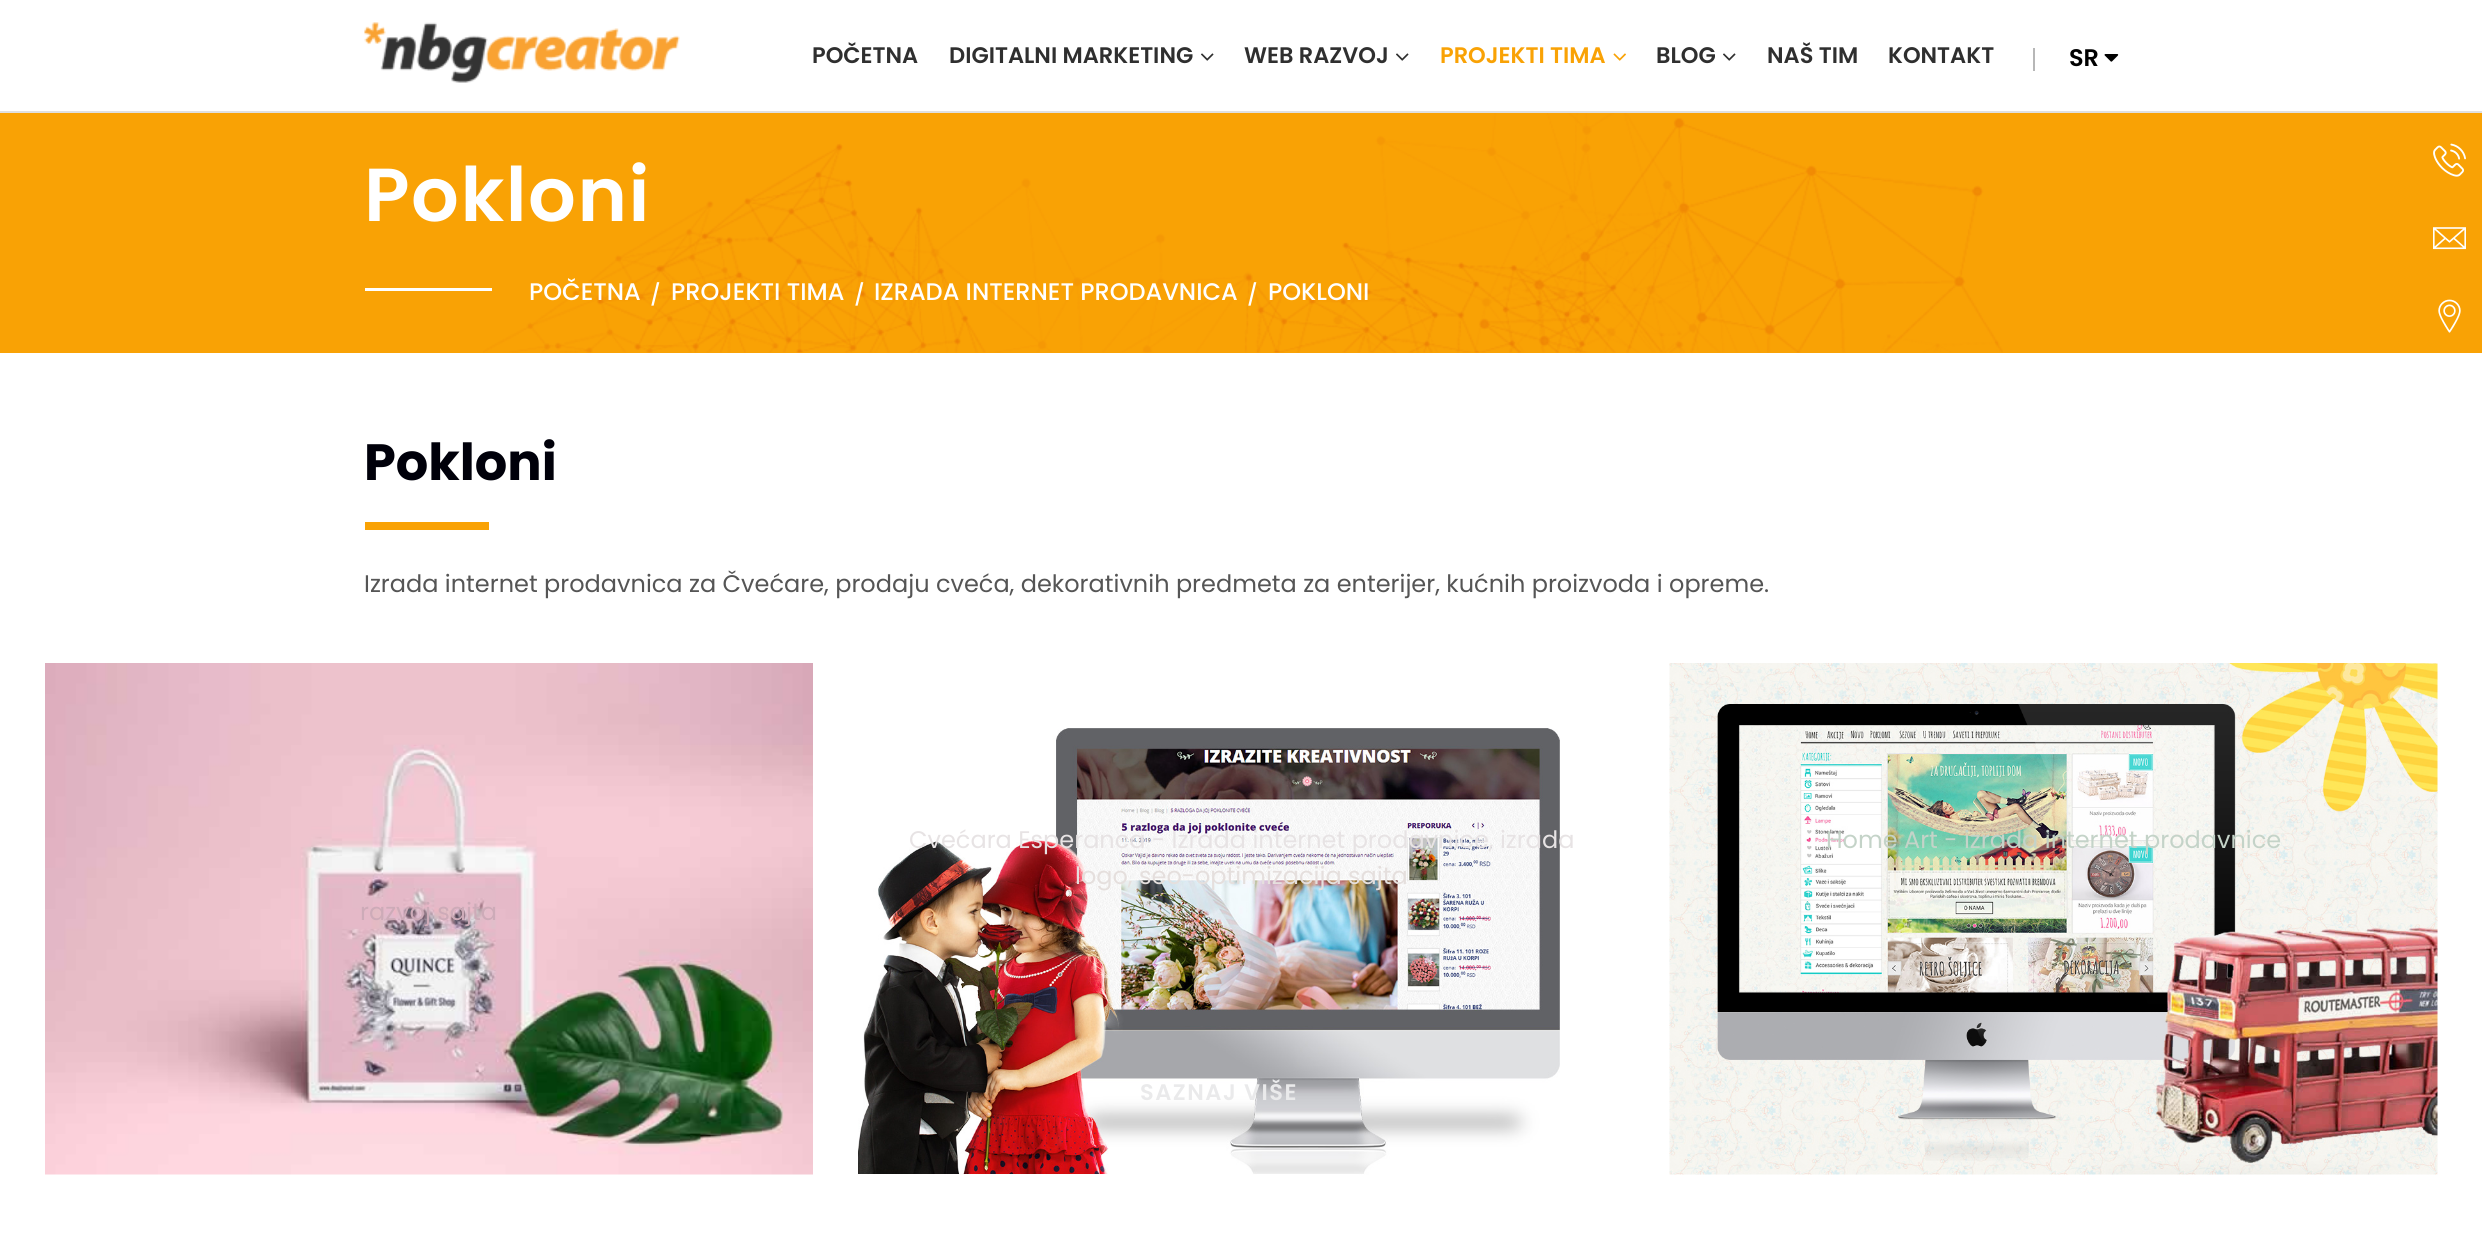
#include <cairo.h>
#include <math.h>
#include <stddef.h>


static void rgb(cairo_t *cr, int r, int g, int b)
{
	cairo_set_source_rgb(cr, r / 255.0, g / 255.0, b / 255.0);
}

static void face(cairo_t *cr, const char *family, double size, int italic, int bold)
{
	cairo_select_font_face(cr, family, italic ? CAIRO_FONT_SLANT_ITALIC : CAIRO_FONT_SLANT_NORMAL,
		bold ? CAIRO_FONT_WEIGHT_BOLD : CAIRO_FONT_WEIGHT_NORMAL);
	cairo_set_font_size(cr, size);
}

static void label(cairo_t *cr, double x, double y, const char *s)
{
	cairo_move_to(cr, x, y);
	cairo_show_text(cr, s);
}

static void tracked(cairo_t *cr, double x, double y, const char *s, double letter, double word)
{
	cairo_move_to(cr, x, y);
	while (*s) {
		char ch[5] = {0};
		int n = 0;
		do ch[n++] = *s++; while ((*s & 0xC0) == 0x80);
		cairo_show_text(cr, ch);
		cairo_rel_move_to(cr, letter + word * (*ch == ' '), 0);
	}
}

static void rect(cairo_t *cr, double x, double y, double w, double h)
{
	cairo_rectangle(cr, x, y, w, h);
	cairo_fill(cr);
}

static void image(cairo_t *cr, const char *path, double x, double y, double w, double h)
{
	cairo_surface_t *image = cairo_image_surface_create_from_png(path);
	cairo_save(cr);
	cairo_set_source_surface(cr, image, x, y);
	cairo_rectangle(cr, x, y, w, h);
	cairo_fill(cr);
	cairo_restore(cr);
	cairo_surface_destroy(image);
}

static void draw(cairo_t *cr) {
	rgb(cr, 255, 255, 255);
	cairo_paint(cr);
	rgb(cr, 224, 224, 224);
	rect(cr, 0, 111, 2482, 2);
	image(cr, "image0.png", 364, 22, 316, 61);
	face(cr, "Poppins SemiBold", 22.5, 0, 0);
	rgb(cr, 47, 47, 47);
	label(cr, 812, 63, "POČETNA");
	label(cr, 949, 63, "DIGITALNI MARKETING");
	image(cr, "image1.png", 1201, 53, 13, 8);
	label(cr, 1244, 63, "WEB RAZVOJ");
	image(cr, "image1.png", 1396, 53, 13, 8);
	rgb(cr, 249, 162, 5);
	label(cr, 1440, 63, "PROJEKTI TIMA");
	image(cr, "image2.png", 1613, 53, 13, 8);
	rgb(cr, 47, 47, 47);
	label(cr, 1656, 63, "BLOG");
	image(cr, "image1.png", 1723, 53, 13, 8);
	label(cr, 1767, 63, "NAŠ TIM");
	label(cr, 1888, 63, "KONTAKT");
	rgb(cr, 183, 183, 183);
	rect(cr, 2033, 48, 2, 23);
	face(cr, "Poppins SemiBold", 24, 0, 0);
	rgb(cr, 1, 1, 1);
	label(cr, 2069, 66, "SR");
	image(cr, "image3.png", 2104, 54, 15, 8);
	rgb(cr, 249, 162, 5);
	rect(cr, 0, 113, 2482, 240);
	image(cr, "image4.png", 483, 113, 1520, 240);
	face(cr, "Poppins SemiBold", 75, 0, 0);
	rgb(cr, 255, 255, 255);
	tracked(cr, 364, 221, "Pokloni", 1.5, 0);
	rect(cr, 365, 288, 127, 3);
	face(cr, "Poppins Medium", 24, 0, 0);
	label(cr, 529, 300, "POČETNA");
	face(cr, "Poppins Medium", 21, 0, 0);
	label(cr, 650, 302, "/");
	face(cr, "Poppins Medium", 24, 0, 0);
	label(cr, 671, 300, "PROJEKTI TIMA");
	face(cr, "Poppins Medium", 21, 0, 0);
	label(cr, 854, 302, "/");
	face(cr, "Poppins Medium", 24, 0, 0);
	label(cr, 874, 300, "IZRADA INTERNET PRODAVNICA");
	face(cr, "Poppins Medium", 21, 0, 0);
	label(cr, 1247, 302, "/");
	face(cr, "Poppins Medium", 24, 0, 0);
	label(cr, 1268, 300, "POKLONI");
	image(cr, "image5.png", 2433, 143, 33, 34);
	image(cr, "image6.png", 2433, 227, 33, 23);
	image(cr, "image7.png", 2438, 299, 23, 34);
	face(cr, "Poppins", 51, 0, 1);
	rgb(cr, 0, 0, 10);
	label(cr, 364, 480, "Pokloni");
	rgb(cr, 249, 162, 5);
	rect(cr, 365, 522, 124, 8);
	face(cr, "Poppins", 24, 0, 0);
	rgb(cr, 85, 85, 85);
	label(cr, 364, 592, "Izrada internet prodavnica za Čvećare, prodaju cveća, dekorativnih predmeta za enterijer, kućnih proizvoda i opreme.");
	image(cr, "image8.png", 858, 728, 702, 447);
	rgb(cr, 231, 227, 228);
	label(cr, 909, 848, "Cvećara Esperanca - Izrada internet prodavnice, izrada");
	rgb(cr, 229, 223, 221);
	label(cr, 1075, 884, "logo, seo-optimizacija sajta");
	face(cr, "Poppins SemiBold", 22.5, 0, 0);
	rgb(cr, 234, 234, 235);
	tracked(cr, 1140, 1100, "SAZNAJ VIŠE", 1.5, 0);
	image(cr, "image9.png", 1669, 663, 769, 512);
	face(cr, "Poppins", 24, 0, 0);
	rgb(cr, 196, 211, 200);
	label(cr, 1826, 848, "Home Art - izrada internet prodavnice");
	image(cr, "image10.png", 45, 663, 768, 512);
	rgb(cr, 205, 171, 184);
	label(cr, 360, 920, "razvoj sajta");
}

int main(void) {
	cairo_surface_t *surface = cairo_image_surface_create(CAIRO_FORMAT_RGB24, 2482, 1233);
	cairo_t *cr = cairo_create(surface);
	cairo_font_options_t *options = cairo_font_options_create();
	cairo_font_options_set_hint_metrics(options, CAIRO_HINT_METRICS_OFF);
	cairo_font_options_set_hint_style(options, CAIRO_HINT_STYLE_NONE);
	cairo_set_font_options(cr, options);
	cairo_set_miter_limit(cr, 4);
	draw(cr);
	cairo_surface_write_to_png(surface, "render.png");
	cairo_font_options_destroy(options);
	cairo_destroy(cr);
	cairo_surface_destroy(surface);
	return 0;
}
